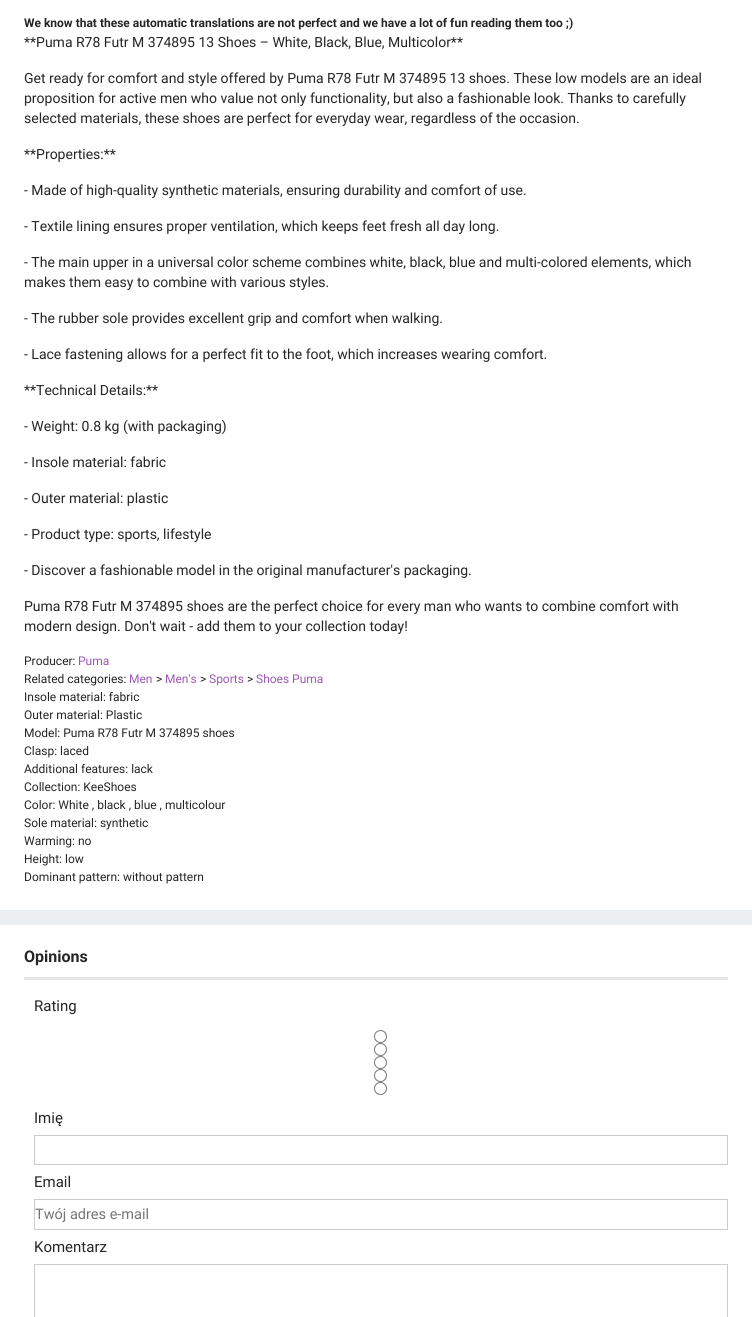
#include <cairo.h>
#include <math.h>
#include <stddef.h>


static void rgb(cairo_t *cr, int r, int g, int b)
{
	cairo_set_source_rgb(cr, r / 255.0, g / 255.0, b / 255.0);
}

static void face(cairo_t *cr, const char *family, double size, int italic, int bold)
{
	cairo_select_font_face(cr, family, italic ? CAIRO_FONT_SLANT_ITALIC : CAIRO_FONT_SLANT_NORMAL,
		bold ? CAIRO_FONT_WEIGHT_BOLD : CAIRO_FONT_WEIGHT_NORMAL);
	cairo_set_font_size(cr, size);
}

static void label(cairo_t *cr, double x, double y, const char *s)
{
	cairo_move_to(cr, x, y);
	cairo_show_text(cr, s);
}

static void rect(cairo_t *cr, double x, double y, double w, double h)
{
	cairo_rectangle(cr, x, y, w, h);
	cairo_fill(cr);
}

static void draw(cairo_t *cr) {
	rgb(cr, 236, 239, 241);
	cairo_paint(cr);
	rgb(cr, 255, 255, 255);
	rect(cr, 0, 0, 752, 910);
	face(cr, "Roboto", 12, 0, 1);
	rgb(cr, 37, 37, 37);
	label(cr, 24, 27, "We know that these automatic translations are not perfect and we have a lot of fun reading them too ;)");
	face(cr, "Roboto", 14, 0, 0);
	label(cr, 24, 47, "**Puma R78 Futr M 374895 13 Shoes – White, Black, Blue, Multicolor**");
	label(cr, 24, 83, "Get ready for comfort and style offered by Puma R78 Futr M 374895 13 shoes. These low models are an ideal");
	label(cr, 24, 103, "proposition for active men who value not only functionality, but also a fashionable look. Thanks to carefully");
	label(cr, 24, 123, "selected materials, these shoes are perfect for everyday wear, regardless of the occasion.");
	label(cr, 24, 159, "**Properties:**");
	label(cr, 24, 195, "- Made of high-quality synthetic materials, ensuring durability and comfort of use.");
	label(cr, 24, 231, "- Textile lining ensures proper ventilation, which keeps feet fresh all day long.");
	label(cr, 24, 267, "- The main upper in a universal color scheme combines white, black, blue and multi-colored elements, which");
	label(cr, 24, 287, "makes them easy to combine with various styles.");
	label(cr, 24, 323, "- The rubber sole provides excellent grip and comfort when walking.");
	label(cr, 24, 359, "- Lace fastening allows for a perfect fit to the foot, which increases wearing comfort.");
	label(cr, 24, 395, "**Technical Details:**");
	label(cr, 24, 431, "- Weight: 0.8 kg (with packaging)");
	label(cr, 24, 467, "- Insole material: fabric");
	label(cr, 24, 503, "- Outer material: plastic");
	label(cr, 24, 539, "- Product type: sports, lifestyle");
	label(cr, 24, 575, "- Discover a fashionable model in the original manufacturer's packaging.");
	label(cr, 24, 611, "Puma R78 Futr M 374895 shoes are the perfect choice for every man who wants to combine comfort with");
	label(cr, 24, 631, "modern design. Don't wait - add them to your collection today!");
	face(cr, "Roboto", 12, 0, 0);
	label(cr, 24, 665, "Producer:");
	rgb(cr, 155, 89, 182);
	label(cr, 78, 665, "Puma");
	rgb(cr, 37, 37, 37);
	label(cr, 24, 683, "Related categories:");
	rgb(cr, 155, 89, 182);
	label(cr, 129, 683, "Men");
	rgb(cr, 37, 37, 37);
	label(cr, 156, 683, ">");
	rgb(cr, 155, 89, 182);
	label(cr, 165, 683, "Men's");
	rgb(cr, 37, 37, 37);
	label(cr, 200, 683, ">");
	rgb(cr, 155, 89, 182);
	label(cr, 209, 683, "Sports");
	rgb(cr, 37, 37, 37);
	label(cr, 247, 683, ">");
	rgb(cr, 155, 89, 182);
	label(cr, 256, 683, "Shoes Puma");
	rgb(cr, 37, 37, 37);
	label(cr, 24, 701, "Insole material: fabric");
	label(cr, 24, 719, "Outer material: Plastic");
	label(cr, 24, 737, "Model: Puma R78 Futr M 374895 shoes");
	label(cr, 24, 755, "Clasp: laced");
	label(cr, 24, 773, "Additional features: lack");
	label(cr, 24, 791, "Collection: KeeShoes");
	label(cr, 24, 809, "Color: White , black , blue , multicolour");
	label(cr, 24, 827, "Sole material: synthetic");
	label(cr, 24, 845, "Warming: no");
	label(cr, 24, 863, "Height: low");
	label(cr, 24, 881, "Dominant pattern: without pattern");
	rgb(cr, 255, 255, 255);
	rect(cr, 0, 925, 752, 392);
	rgb(cr, 228, 228, 228);
	rect(cr, 24, 977, 704, 3);
	face(cr, "Roboto", 16, 0, 1);
	rgb(cr, 37, 37, 37);
	label(cr, 24, 962, "Opinions");
	face(cr, "Roboto", 15, 0, 0);
	label(cr, 34, 1011, "Rating");
	cairo_new_path(cr);
	cairo_arc(cr, 380.5, 1036.5, 6, 0, 2 * M_PI);
	rgb(cr, 118, 118, 118);
	cairo_set_line_width(cr, 1);
	cairo_stroke(cr);
	cairo_arc(cr, 380.5, 1049.5, 6, 0, 2 * M_PI);
	cairo_stroke(cr);
	cairo_arc(cr, 380.5, 1062.5, 6, 0, 2 * M_PI);
	cairo_stroke(cr);
	cairo_arc(cr, 380.5, 1075.5, 6, 0, 2 * M_PI);
	cairo_stroke(cr);
	cairo_arc(cr, 380.5, 1088.5, 6, 0, 2 * M_PI);
	cairo_stroke(cr);
	rgb(cr, 37, 37, 37);
	label(cr, 34, 1123, "Imię");
	cairo_rectangle(cr, 34.5, 1135.5, 693, 29);
	rgb(cr, 204, 204, 204);
	cairo_stroke(cr);
	rgb(cr, 37, 37, 37);
	label(cr, 34, 1187, "Email");
	cairo_rectangle(cr, 34.5, 1199.5, 693, 30);
	rgb(cr, 204, 204, 204);
	cairo_stroke(cr);
	face(cr, "Roboto", 14.5, 0, 0);
	rgb(cr, 117, 117, 117);
	label(cr, 35, 1219, "Twój adres e-mail");
	face(cr, "Roboto", 15, 0, 0);
	rgb(cr, 37, 37, 37);
	label(cr, 34, 1252, "Komentarz");
	cairo_rectangle(cr, 34.5, 1264.5, 693, 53);
	rgb(cr, 204, 204, 204);
	cairo_stroke(cr);
}

int main(void) {
	cairo_surface_t *surface = cairo_image_surface_create(CAIRO_FORMAT_RGB24, 752, 1317);
	cairo_t *cr = cairo_create(surface);
	cairo_font_options_t *options = cairo_font_options_create();
	cairo_font_options_set_hint_metrics(options, CAIRO_HINT_METRICS_OFF);
	cairo_font_options_set_hint_style(options, CAIRO_HINT_STYLE_NONE);
	cairo_set_font_options(cr, options);
	cairo_set_miter_limit(cr, 4);
	draw(cr);
	cairo_surface_write_to_png(surface, "render.png");
	cairo_font_options_destroy(options);
	cairo_destroy(cr);
	cairo_surface_destroy(surface);
	return 0;
}
